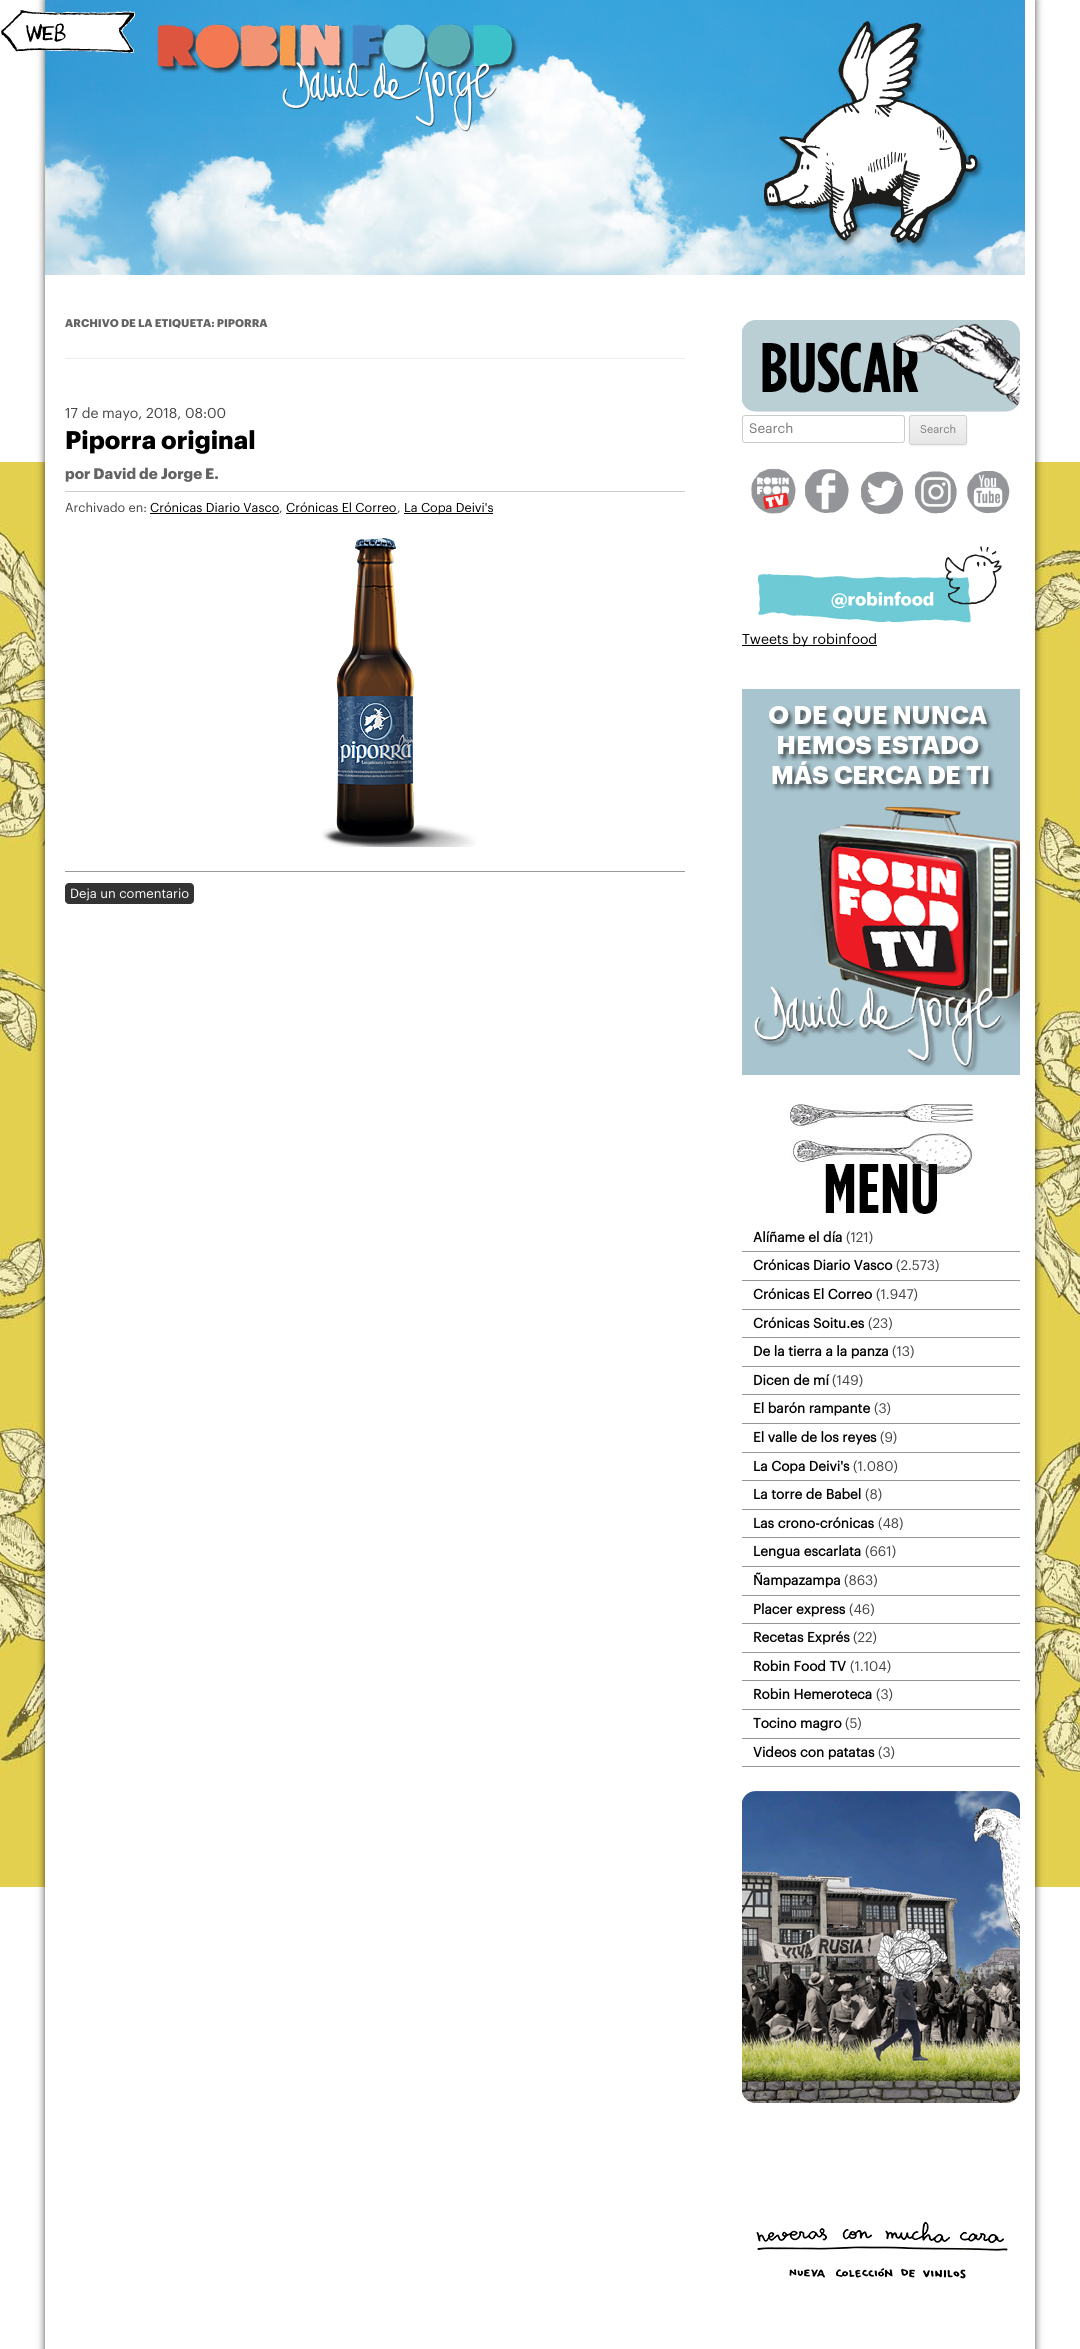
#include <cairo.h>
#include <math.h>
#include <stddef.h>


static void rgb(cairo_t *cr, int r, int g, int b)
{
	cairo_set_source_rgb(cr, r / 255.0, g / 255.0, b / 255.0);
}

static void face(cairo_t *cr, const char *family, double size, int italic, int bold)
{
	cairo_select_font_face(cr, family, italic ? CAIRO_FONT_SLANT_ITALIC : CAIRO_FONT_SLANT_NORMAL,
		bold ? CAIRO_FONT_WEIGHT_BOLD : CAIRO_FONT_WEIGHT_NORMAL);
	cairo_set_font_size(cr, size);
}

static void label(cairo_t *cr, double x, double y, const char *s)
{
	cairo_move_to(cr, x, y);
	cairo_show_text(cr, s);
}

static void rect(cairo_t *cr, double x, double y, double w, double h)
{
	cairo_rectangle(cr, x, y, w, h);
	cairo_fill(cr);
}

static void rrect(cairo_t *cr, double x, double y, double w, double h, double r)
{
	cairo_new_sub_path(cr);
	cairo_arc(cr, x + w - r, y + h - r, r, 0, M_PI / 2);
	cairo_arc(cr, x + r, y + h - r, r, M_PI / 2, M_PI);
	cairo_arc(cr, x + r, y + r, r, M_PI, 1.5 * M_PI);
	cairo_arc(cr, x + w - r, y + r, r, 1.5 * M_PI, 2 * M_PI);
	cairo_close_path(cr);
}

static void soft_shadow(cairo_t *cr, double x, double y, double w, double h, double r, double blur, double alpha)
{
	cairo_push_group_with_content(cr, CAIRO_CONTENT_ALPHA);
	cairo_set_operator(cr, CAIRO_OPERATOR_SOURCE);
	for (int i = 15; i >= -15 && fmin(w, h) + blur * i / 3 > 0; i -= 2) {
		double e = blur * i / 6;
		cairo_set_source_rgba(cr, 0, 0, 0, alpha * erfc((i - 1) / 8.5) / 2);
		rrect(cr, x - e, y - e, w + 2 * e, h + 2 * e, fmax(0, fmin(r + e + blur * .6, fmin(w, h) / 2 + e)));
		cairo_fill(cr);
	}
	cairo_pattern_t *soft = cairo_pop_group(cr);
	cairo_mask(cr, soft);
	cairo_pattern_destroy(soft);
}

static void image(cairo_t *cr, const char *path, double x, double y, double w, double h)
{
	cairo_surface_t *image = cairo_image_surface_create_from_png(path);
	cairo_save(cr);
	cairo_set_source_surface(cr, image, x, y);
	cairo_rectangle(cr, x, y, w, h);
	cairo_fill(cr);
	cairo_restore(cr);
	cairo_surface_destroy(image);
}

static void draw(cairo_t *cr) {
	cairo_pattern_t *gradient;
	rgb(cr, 255, 255, 255);
	cairo_paint(cr);
	image(cr, "image0.png", 0, 462, 1080, 1425);
	rgb(cr, 0, 0, 0);
	soft_shadow(cr, 45, 0, 990, 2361, 0, 4, 0.7);
	rgb(cr, 255, 255, 255);
	rect(cr, 45, 0, 990, 2349);
	image(cr, "image2.png", 45, 0, 980, 275);
	image(cr, "image1.png", 1, 10, 134, 43);
	rgb(cr, 237, 237, 237);
	rect(cr, 65, 358, 620, 1);
	face(cr, "Graphik", 11, 0, 1);
	rgb(cr, 99, 99, 99);
	label(cr, 65, 327, "ARCHIVO DE LA ETIQUETA: PIPORRA");
	rgb(cr, 204, 204, 204);
	rect(cr, 65, 491, 620, 1);
	face(cr, "Graphik", 14, 0, 0);
	rgb(cr, 68, 68, 68);
	label(cr, 65, 418, "17 de mayo, 2018, 08:00");
	face(cr, "Graphik", 25, 0, 1);
	rgb(cr, 0, 0, 0);
	label(cr, 65, 449, "Piporra original");
	face(cr, "Graphik", 15, 0, 1);
	rgb(cr, 99, 99, 99);
	label(cr, 65, 479, "por David de Jorge E.");
	face(cr, "Graphik", 12.6, 0, 0);
	rgb(cr, 68, 68, 68);
	label(cr, 65, 512, "Archivado en:");
	rgb(cr, 0, 0, 0);
	label(cr, 150, 512, "Crónicas Diario Vasco");
	rect(cr, 150, 513, 129, 1);
	rgb(cr, 68, 68, 68);
	label(cr, 279, 512, ",");
	rgb(cr, 0, 0, 0);
	label(cr, 286, 512, "Crónicas El Correo");
	rect(cr, 286, 513, 111, 1);
	rgb(cr, 68, 68, 68);
	label(cr, 397, 512, ",");
	rgb(cr, 0, 0, 0);
	rect(cr, 404, 513, 89, 1);
	label(cr, 404, 512, "La Copa Deivi's");
	image(cr, "image3.png", 321, 538, 155, 309);
	rgb(cr, 153, 153, 153);
	rect(cr, 65, 871, 620, 1);
	rgb(cr, 51, 51, 51);
	rrect(cr, 65, 883, 129, 21, 4);
	cairo_fill(cr);
	face(cr, "Graphik", 13, 0, 0);
	rgb(cr, 255, 255, 255);
	label(cr, 70, 898, "Deja un comentario");
	image(cr, "image4.png", 742, 320, 278, 92);
	rrect(cr, 742.5, 415.5, 162, 27, 2.5);
	rgb(cr, 204, 204, 204);
	cairo_set_line_width(cr, 1);
	cairo_stroke(cr);
	face(cr, "Graphik", 13.5, 0, 0);
	rgb(cr, 117, 117, 117);
	label(cr, 749, 433, "Search");
	rgb(cr, 64, 64, 64);
	soft_shadow(cr, 909, 416, 58, 30, 3, 1, 0.1);
	cairo_save(cr);
	rrect(cr, 909, 415, 58, 30, 3);
	cairo_clip(cr);
	gradient = cairo_pattern_create_linear(938, 416, 938, 444);
	cairo_pattern_add_color_stop_rgba(gradient, 0, 0.957, 0.957, 0.957, 1);
	cairo_pattern_add_color_stop_rgba(gradient, 1, 0.902, 0.902, 0.902, 1);
	cairo_set_source(cr, gradient);
	cairo_pattern_destroy(gradient);
	rect(cr, 909, 416, 58, 28);
	cairo_restore(cr);
	rrect(cr, 909.5, 415.5, 57, 29, 2.5);
	rgb(cr, 210, 210, 210);
	cairo_stroke(cr);
	face(cr, "Graphik", 11, 0, 0);
	rgb(cr, 124, 124, 124);
	label(cr, 920, 433, "Search");
	image(cr, "image5.png", 751, 468, 45, 46);
	image(cr, "image6.png", 805, 469, 44, 44);
	image(cr, "image7.png", 861, 471, 43, 44);
	image(cr, "image8.png", 914, 471, 43, 43);
	image(cr, "image9.png", 967, 471, 43, 43);
	image(cr, "image10.png", 758, 546, 244, 77);
	rgb(cr, 0, 0, 0);
	rect(cr, 742, 645, 135, 1);
	face(cr, "Graphik", 14, 0, 0);
	label(cr, 742, 644, "Tweets by robinfood");
	image(cr, "image11.png", 742, 689, 278, 386);
	image(cr, "image12.png", 790, 1104, 184, 112);
	rgb(cr, 149, 149, 149);
	rect(cr, 742, 1251, 278, 1);
	face(cr, "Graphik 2", 13.6, 0, 1);
	rgb(cr, 0, 0, 0);
	label(cr, 753, 1242, "Alíñame el día");
	face(cr, "Graphik", 13.6, 0, 0);
	rgb(cr, 68, 68, 68);
	label(cr, 846, 1242, "(121)");
	rgb(cr, 149, 149, 149);
	rect(cr, 742, 1280, 278, 1);
	face(cr, "Graphik 2", 13.6, 0, 1);
	rgb(cr, 0, 0, 0);
	label(cr, 753, 1270, "Crónicas Diario Vasco");
	face(cr, "Graphik", 13.6, 0, 0);
	rgb(cr, 68, 68, 68);
	label(cr, 896, 1270, "(2.573)");
	rgb(cr, 149, 149, 149);
	rect(cr, 742, 1309, 278, 1);
	face(cr, "Graphik 2", 13.6, 0, 1);
	rgb(cr, 0, 0, 0);
	label(cr, 753, 1299, "Crónicas El Correo");
	face(cr, "Graphik", 13.6, 0, 0);
	rgb(cr, 68, 68, 68);
	label(cr, 876, 1299, "(1.947)");
	rgb(cr, 149, 149, 149);
	rect(cr, 742, 1337, 278, 1);
	face(cr, "Graphik 2", 13.6, 0, 1);
	rgb(cr, 0, 0, 0);
	label(cr, 753, 1328, "Crónicas Soitu.es");
	face(cr, "Graphik", 13.6, 0, 0);
	rgb(cr, 68, 68, 68);
	label(cr, 868, 1328, "(23)");
	rgb(cr, 149, 149, 149);
	rect(cr, 742, 1366, 278, 1);
	face(cr, "Graphik 2", 13.6, 0, 1);
	rgb(cr, 0, 0, 0);
	label(cr, 753, 1356, "De la tierra a la panza");
	face(cr, "Graphik", 13.6, 0, 0);
	rgb(cr, 68, 68, 68);
	label(cr, 892, 1356, "(13)");
	rgb(cr, 149, 149, 149);
	rect(cr, 742, 1394, 278, 1);
	face(cr, "Graphik 2", 13.6, 0, 1);
	rgb(cr, 0, 0, 0);
	label(cr, 753, 1385, "Dicen de mí");
	face(cr, "Graphik", 13.6, 0, 0);
	rgb(cr, 68, 68, 68);
	label(cr, 832, 1385, "(149)");
	rgb(cr, 149, 149, 149);
	rect(cr, 742, 1423, 278, 1);
	face(cr, "Graphik 2", 13.6, 0, 1);
	rgb(cr, 0, 0, 0);
	label(cr, 753, 1413, "El barón rampante");
	face(cr, "Graphik", 13.6, 0, 0);
	rgb(cr, 68, 68, 68);
	label(cr, 874, 1413, "(3)");
	rgb(cr, 149, 149, 149);
	rect(cr, 742, 1452, 278, 1);
	face(cr, "Graphik 2", 13.6, 0, 1);
	rgb(cr, 0, 0, 0);
	label(cr, 753, 1442, "El valle de los reyes");
	face(cr, "Graphik", 13.6, 0, 0);
	rgb(cr, 68, 68, 68);
	label(cr, 880, 1442, "(9)");
	rgb(cr, 149, 149, 149);
	rect(cr, 742, 1480, 278, 1);
	face(cr, "Graphik 2", 13.6, 0, 1);
	rgb(cr, 0, 0, 0);
	label(cr, 753, 1471, "La Copa Deivi's");
	face(cr, "Graphik", 13.6, 0, 0);
	rgb(cr, 68, 68, 68);
	label(cr, 853, 1471, "(1.080)");
	rgb(cr, 149, 149, 149);
	rect(cr, 742, 1509, 278, 1);
	face(cr, "Graphik 2", 13.6, 0, 1);
	rgb(cr, 0, 0, 0);
	label(cr, 753, 1499, "La torre de Babel");
	face(cr, "Graphik", 13.6, 0, 0);
	rgb(cr, 68, 68, 68);
	label(cr, 865, 1499, "(8)");
	rgb(cr, 149, 149, 149);
	rect(cr, 742, 1537, 278, 1);
	face(cr, "Graphik 2", 13.6, 0, 1);
	rgb(cr, 0, 0, 0);
	label(cr, 753, 1528, "Las crono-crónicas");
	face(cr, "Graphik", 13.6, 0, 0);
	rgb(cr, 68, 68, 68);
	label(cr, 878, 1528, "(48)");
	rgb(cr, 149, 149, 149);
	rect(cr, 742, 1566, 278, 1);
	face(cr, "Graphik 2", 13.6, 0, 1);
	rgb(cr, 0, 0, 0);
	label(cr, 753, 1556, "Lengua escarlata");
	face(cr, "Graphik", 13.6, 0, 0);
	rgb(cr, 68, 68, 68);
	label(cr, 865, 1556, "(661)");
	rgb(cr, 149, 149, 149);
	rect(cr, 742, 1595, 278, 1);
	face(cr, "Graphik 2", 13.6, 0, 1);
	rgb(cr, 0, 0, 0);
	label(cr, 753, 1585, "Ñampazampa");
	face(cr, "Graphik", 13.6, 0, 0);
	rgb(cr, 68, 68, 68);
	label(cr, 844, 1585, "(863)");
	rgb(cr, 149, 149, 149);
	rect(cr, 742, 1623, 278, 1);
	face(cr, "Graphik 2", 13.6, 0, 1);
	rgb(cr, 0, 0, 0);
	label(cr, 753, 1614, "Placer express");
	face(cr, "Graphik", 13.6, 0, 0);
	rgb(cr, 68, 68, 68);
	label(cr, 849, 1614, "(46)");
	rgb(cr, 149, 149, 149);
	rect(cr, 742, 1652, 278, 1);
	face(cr, "Graphik 2", 13.6, 0, 1);
	rgb(cr, 0, 0, 0);
	label(cr, 753, 1642, "Recetas Exprés");
	face(cr, "Graphik", 13.6, 0, 0);
	rgb(cr, 68, 68, 68);
	label(cr, 853, 1642, "(22)");
	rgb(cr, 149, 149, 149);
	rect(cr, 742, 1680, 278, 1);
	face(cr, "Graphik 2", 13.6, 0, 1);
	rgb(cr, 0, 0, 0);
	label(cr, 753, 1671, "Robin Food TV");
	face(cr, "Graphik", 13.6, 0, 0);
	rgb(cr, 68, 68, 68);
	label(cr, 850, 1671, "(1.104)");
	rgb(cr, 149, 149, 149);
	rect(cr, 742, 1709, 278, 1);
	face(cr, "Graphik 2", 13.6, 0, 1);
	rgb(cr, 0, 0, 0);
	label(cr, 753, 1699, "Robin Hemeroteca");
	face(cr, "Graphik", 13.6, 0, 0);
	rgb(cr, 68, 68, 68);
	label(cr, 876, 1699, "(3)");
	rgb(cr, 149, 149, 149);
	rect(cr, 742, 1738, 278, 1);
	face(cr, "Graphik 2", 13.6, 0, 1);
	rgb(cr, 0, 0, 0);
	label(cr, 753, 1728, "Tocino magro");
	face(cr, "Graphik", 13.6, 0, 0);
	rgb(cr, 68, 68, 68);
	label(cr, 845, 1728, "(5)");
	rgb(cr, 149, 149, 149);
	rect(cr, 742, 1766, 278, 1);
	face(cr, "Graphik 2", 13.6, 0, 1);
	rgb(cr, 0, 0, 0);
	label(cr, 753, 1757, "Videos con patatas");
	face(cr, "Graphik", 13.6, 0, 0);
	rgb(cr, 68, 68, 68);
	label(cr, 878, 1757, "(3)");
	image(cr, "image13.png", 742, 1791, 278, 312);
	image(cr, "image14.png", 756, 2221, 252, 58);
}

int main(void) {
	cairo_surface_t *surface = cairo_image_surface_create(CAIRO_FORMAT_RGB24, 1080, 2349);
	cairo_t *cr = cairo_create(surface);
	cairo_font_options_t *options = cairo_font_options_create();
	cairo_font_options_set_hint_metrics(options, CAIRO_HINT_METRICS_OFF);
	cairo_font_options_set_hint_style(options, CAIRO_HINT_STYLE_NONE);
	cairo_set_font_options(cr, options);
	cairo_set_miter_limit(cr, 4);
	draw(cr);
	cairo_surface_write_to_png(surface, "render.png");
	cairo_font_options_destroy(options);
	cairo_destroy(cr);
	cairo_surface_destroy(surface);
	return 0;
}
